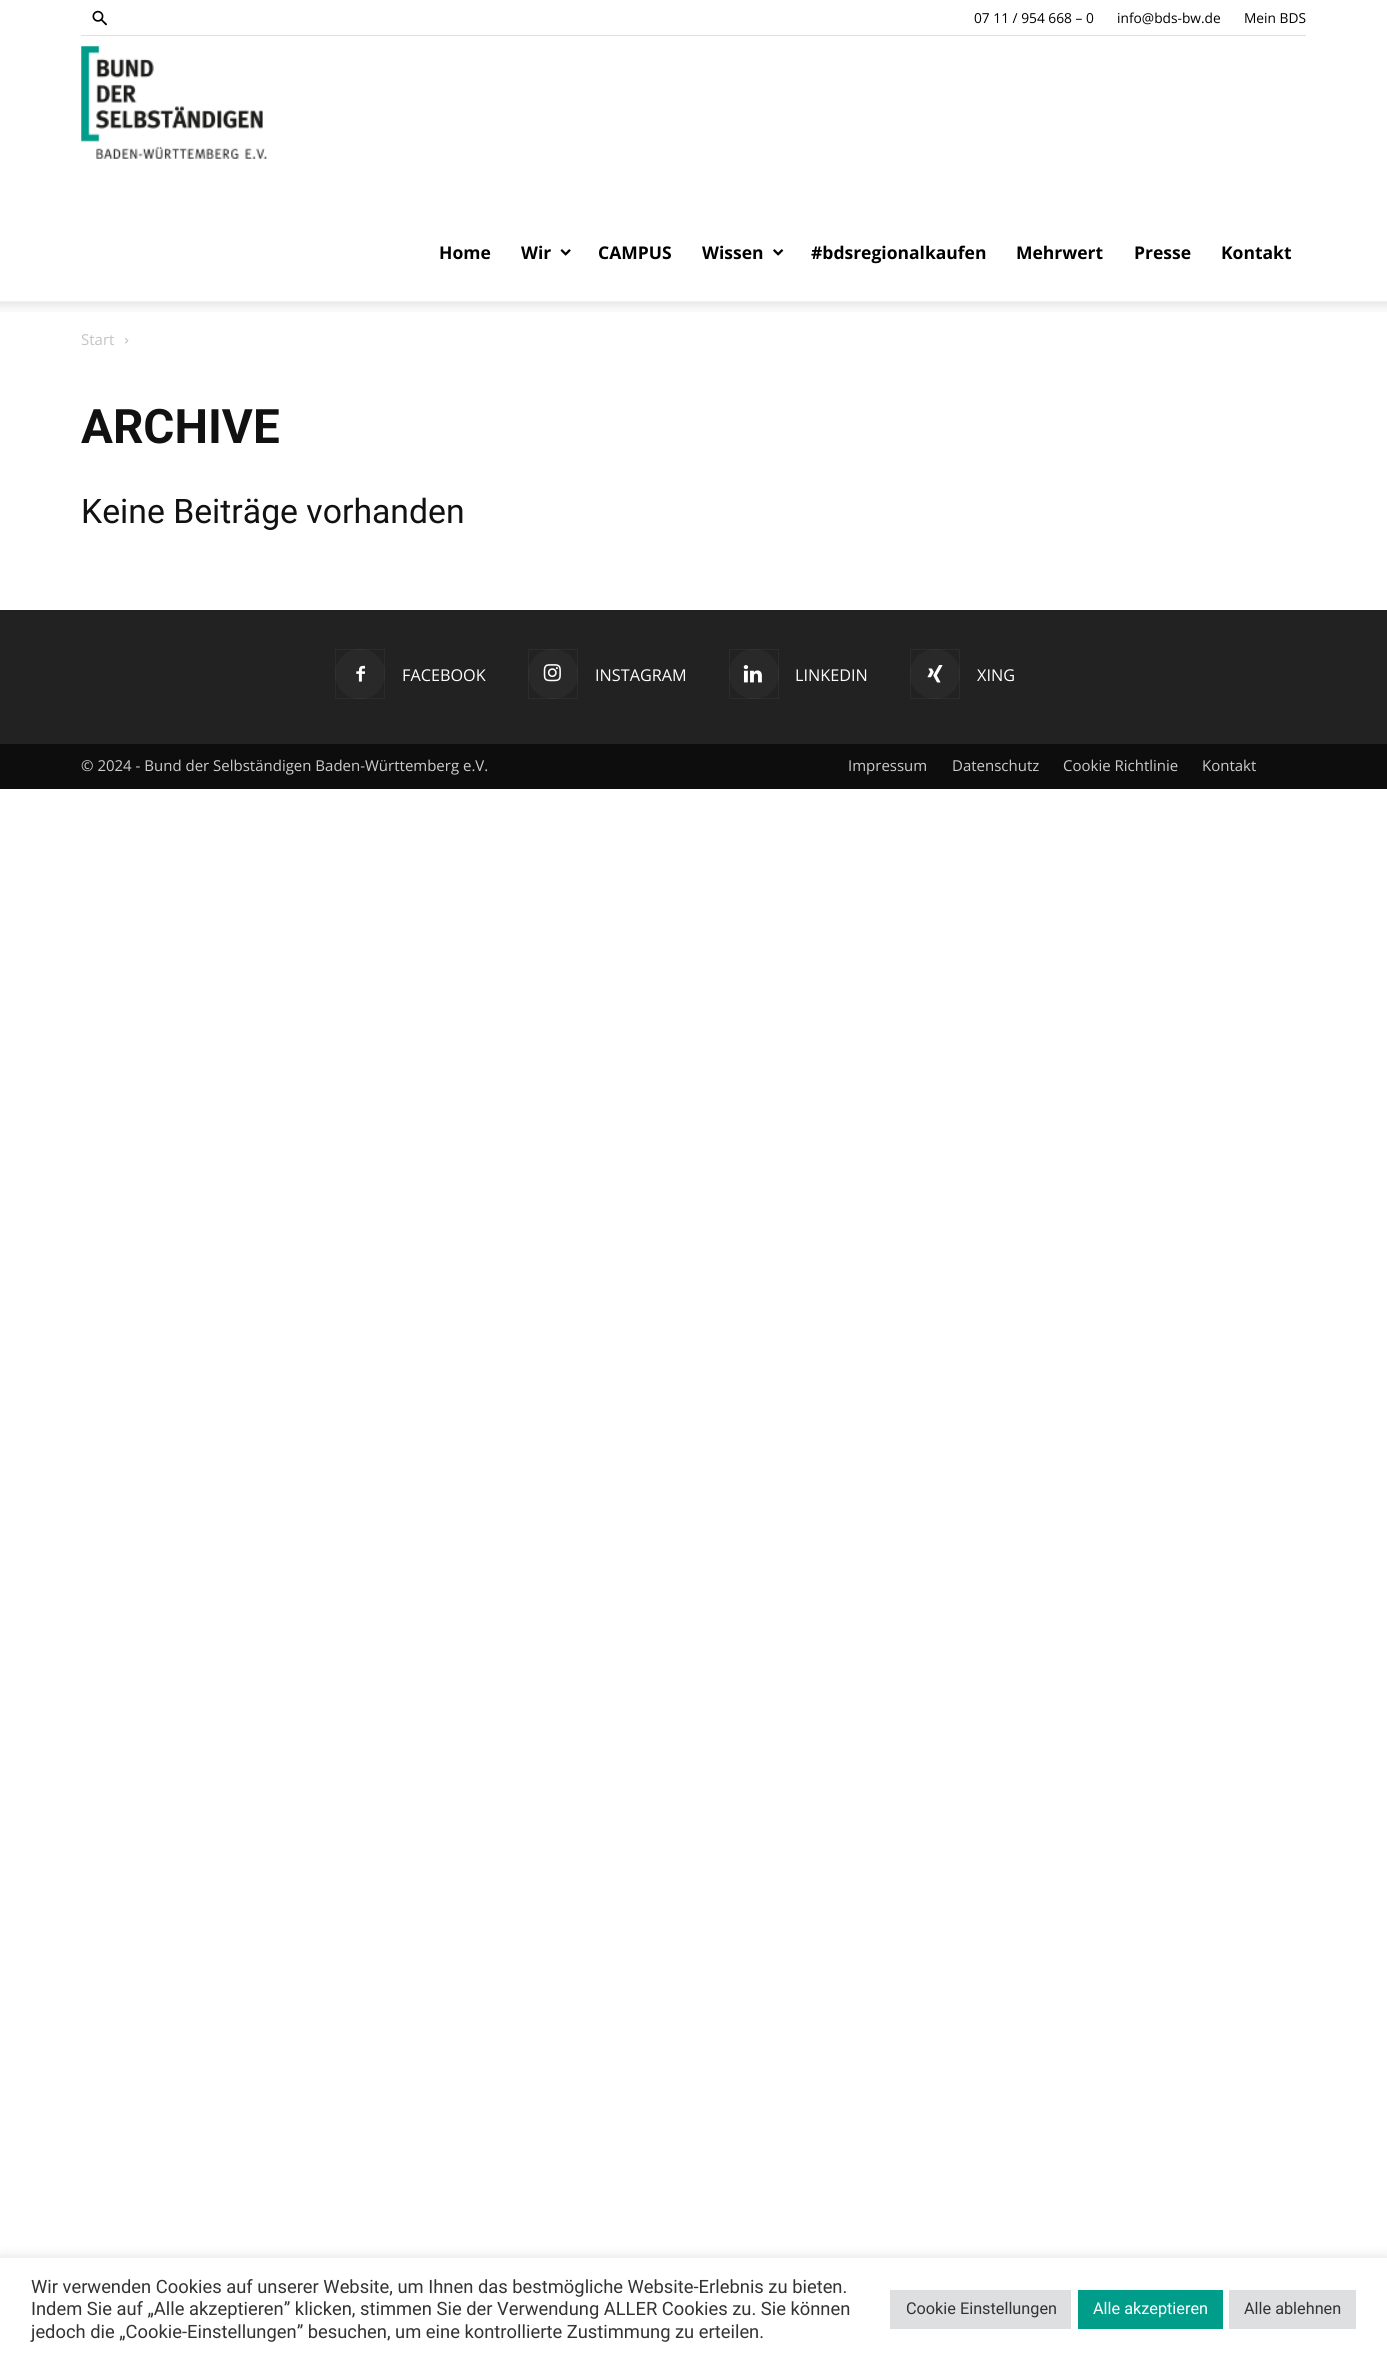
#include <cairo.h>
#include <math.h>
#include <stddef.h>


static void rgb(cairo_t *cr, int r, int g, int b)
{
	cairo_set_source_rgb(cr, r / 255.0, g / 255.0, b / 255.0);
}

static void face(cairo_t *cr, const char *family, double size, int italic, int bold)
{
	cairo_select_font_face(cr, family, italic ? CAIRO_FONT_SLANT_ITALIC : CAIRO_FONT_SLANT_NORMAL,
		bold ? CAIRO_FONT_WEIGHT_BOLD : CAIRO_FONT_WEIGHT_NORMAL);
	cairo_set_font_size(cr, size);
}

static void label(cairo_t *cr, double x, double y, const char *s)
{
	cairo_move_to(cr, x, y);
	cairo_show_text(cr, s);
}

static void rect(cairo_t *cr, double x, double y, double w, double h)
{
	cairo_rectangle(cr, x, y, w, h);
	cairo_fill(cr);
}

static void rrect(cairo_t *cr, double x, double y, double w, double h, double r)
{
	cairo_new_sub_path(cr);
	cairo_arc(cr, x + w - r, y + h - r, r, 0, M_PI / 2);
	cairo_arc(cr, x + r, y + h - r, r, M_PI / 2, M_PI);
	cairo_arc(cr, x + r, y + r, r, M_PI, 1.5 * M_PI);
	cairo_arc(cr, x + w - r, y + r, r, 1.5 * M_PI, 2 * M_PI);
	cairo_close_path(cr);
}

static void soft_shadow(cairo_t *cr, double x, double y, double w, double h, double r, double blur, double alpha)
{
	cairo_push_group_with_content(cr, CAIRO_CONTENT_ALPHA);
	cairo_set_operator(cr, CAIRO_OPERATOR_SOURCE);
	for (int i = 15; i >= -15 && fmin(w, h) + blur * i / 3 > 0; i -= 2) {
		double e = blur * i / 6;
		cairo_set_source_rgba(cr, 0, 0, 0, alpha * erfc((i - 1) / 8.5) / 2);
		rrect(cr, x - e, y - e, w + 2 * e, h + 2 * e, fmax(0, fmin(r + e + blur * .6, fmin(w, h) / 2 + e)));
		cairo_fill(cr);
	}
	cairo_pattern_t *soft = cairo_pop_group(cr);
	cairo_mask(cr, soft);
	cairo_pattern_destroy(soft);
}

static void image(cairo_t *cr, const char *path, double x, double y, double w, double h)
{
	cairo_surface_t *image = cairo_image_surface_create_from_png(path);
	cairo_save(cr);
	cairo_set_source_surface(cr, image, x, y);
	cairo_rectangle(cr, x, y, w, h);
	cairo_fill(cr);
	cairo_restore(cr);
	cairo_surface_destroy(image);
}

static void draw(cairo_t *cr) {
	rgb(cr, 255, 255, 255);
	cairo_paint(cr);
	rgb(cr, 224, 224, 224);
	rect(cr, 81, 35, 1225, 1);
	image(cr, "image0.png", 92, 10, 15, 16);
	face(cr, "Open Sans", 13.75, 0, 0);
	rgb(cr, 0, 0, 0);
	label(cr, 974, 23, "07 11 / 954 668 – 0");
	label(cr, 1117, 23, "info@bds-bw.de");
	label(cr, 1244, 23, "Mein BDS");
	image(cr, "image1.png", 81, 46, 186, 113);
	face(cr, "Open Sans", 17.5, 0, 1);
	label(cr, 439, 259, "Home");
	label(cr, 521, 259, "Wir");
	image(cr, "image2.png", 560, 249, 11, 7);
	label(cr, 598, 259, "CAMPUS");
	label(cr, 702, 259, "Wissen");
	image(cr, "image3.png", 773, 249, 11, 7);
	label(cr, 811, 259, "#bdsregionalkaufen");
	label(cr, 1016, 259, "Mehrwert");
	label(cr, 1134, 259, "Presse");
	label(cr, 1221, 259, "Kontakt");
	image(cr, "image4.png", 0, 301, 1387, 11);
	face(cr, "Open Sans", 15, 0, 0);
	rgb(cr, 195, 195, 195);
	label(cr, 81, 345, "Start");
	image(cr, "image5.png", 125, 337, 4, 7);
	face(cr, "Roboto", 47.5, 0, 1);
	rgb(cr, 17, 17, 17);
	label(cr, 81, 443, "ARCHIVE");
	face(cr, "Roboto", 33.75, 0, 0);
	label(cr, 81, 523, "Keine Beiträge vorhanden");
	rgb(cr, 34, 34, 34);
	rect(cr, 0, 610, 1387, 134);
	rgb(cr, 41, 41, 41);
	cairo_new_path(cr);
	cairo_arc(cr, 360, 674, 25, 0, 2 * M_PI);
	cairo_fill(cr);
	image(cr, "image6.png", 356, 665, 9, 17);
	cairo_rectangle(cr, 335.5, 649.5, 49, 49);
	cairo_set_source_rgba(cr, 1, 1, 1, 0.05);
	cairo_set_line_width(cr, 1);
	cairo_stroke(cr);
	face(cr, "Open Sans", 16.25, 0, 0);
	rgb(cr, 255, 255, 255);
	label(cr, 402, 681, "FACEBOOK");
	rgb(cr, 41, 41, 41);
	cairo_new_path(cr);
	cairo_arc(cr, 553, 674, 25, 0, 2 * M_PI);
	cairo_fill(cr);
	image(cr, "image7.png", 543, 664, 18, 18);
	cairo_rectangle(cr, 528.5, 649.5, 49, 49);
	cairo_set_source_rgba(cr, 1, 1, 1, 0.05);
	cairo_stroke(cr);
	rgb(cr, 255, 255, 255);
	label(cr, 595, 681, "INSTAGRAM");
	rgb(cr, 41, 41, 41);
	cairo_new_path(cr);
	cairo_arc(cr, 754, 674, 25, 0, 2 * M_PI);
	cairo_fill(cr);
	image(cr, "image8.png", 743, 665, 19, 18);
	cairo_rectangle(cr, 729.5, 649.5, 49, 49);
	cairo_set_source_rgba(cr, 1, 1, 1, 0.05);
	cairo_stroke(cr);
	rgb(cr, 255, 255, 255);
	label(cr, 795, 681, "LINKEDIN");
	rgb(cr, 41, 41, 41);
	cairo_new_path(cr);
	cairo_arc(cr, 935, 674, 25, 0, 2 * M_PI);
	cairo_fill(cr);
	image(cr, "image9.png", 927, 665, 16, 18);
	cairo_rectangle(cr, 910.5, 649.5, 49, 49);
	cairo_set_source_rgba(cr, 1, 1, 1, 0.05);
	cairo_stroke(cr);
	rgb(cr, 255, 255, 255);
	label(cr, 977, 681, "XING");
	rgb(cr, 13, 13, 13);
	rect(cr, 0, 744, 1387, 45);
	face(cr, "Open Sans", 15, 0, 0);
	rgb(cr, 204, 204, 204);
	label(cr, 81, 771, "© 2024 - Bund der Selbständigen Baden-Württemberg e.V.");
	label(cr, 848, 771, "Impressum");
	label(cr, 952, 771, "Datenschutz");
	label(cr, 1063, 771, "Cookie Richtlinie");
	label(cr, 1202, 771, "Kontakt");
	cairo_save(cr);
	cairo_rectangle(cr, 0, 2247, 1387, 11);
	cairo_clip(cr);
	rgb(cr, 172, 171, 171);
	soft_shadow(cr, 0, 2256, 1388, 103, 0, 6, 0.3);
	cairo_restore(cr);
	face(cr, "Roboto", 18.35, 0, 0);
	rgb(cr, 51, 51, 51);
	label(cr, 31, 2293, "Wir verwenden Cookies auf unserer Website, um Ihnen das bestmögliche Website-Erlebnis zu bieten.");
	label(cr, 31, 2315, "Indem Sie auf „Alle akzeptieren” klicken, stimmen Sie der Verwendung ALLER Cookies zu. Sie können");
	label(cr, 31, 2338, "jedoch die „Cookie-Einstellungen” besuchen, um eine kontrollierte Zustimmung zu erteilen.");
	rgb(cr, 222, 223, 224);
	rect(cr, 890, 2290, 181, 39);
	face(cr, "Roboto", 16.25, 0, 0);
	rgb(cr, 51, 51, 51);
	label(cr, 906, 2314, "Cookie Einstellungen");
	rgb(cr, 0, 157, 139);
	rect(cr, 1078, 2290, 145, 39);
	rgb(cr, 255, 255, 255);
	label(cr, 1093, 2314, "Alle akzeptieren");
	rgb(cr, 222, 223, 224);
	rect(cr, 1229, 2290, 127, 39);
	rgb(cr, 51, 51, 51);
	label(cr, 1244, 2314, "Alle ablehnen");
}

int main(void) {
	cairo_surface_t *surface = cairo_image_surface_create(CAIRO_FORMAT_RGB24, 1387, 2360);
	cairo_t *cr = cairo_create(surface);
	cairo_font_options_t *options = cairo_font_options_create();
	cairo_font_options_set_hint_metrics(options, CAIRO_HINT_METRICS_OFF);
	cairo_font_options_set_hint_style(options, CAIRO_HINT_STYLE_NONE);
	cairo_set_font_options(cr, options);
	cairo_set_miter_limit(cr, 4);
	draw(cr);
	cairo_surface_write_to_png(surface, "render.png");
	cairo_font_options_destroy(options);
	cairo_destroy(cr);
	cairo_surface_destroy(surface);
	return 0;
}
